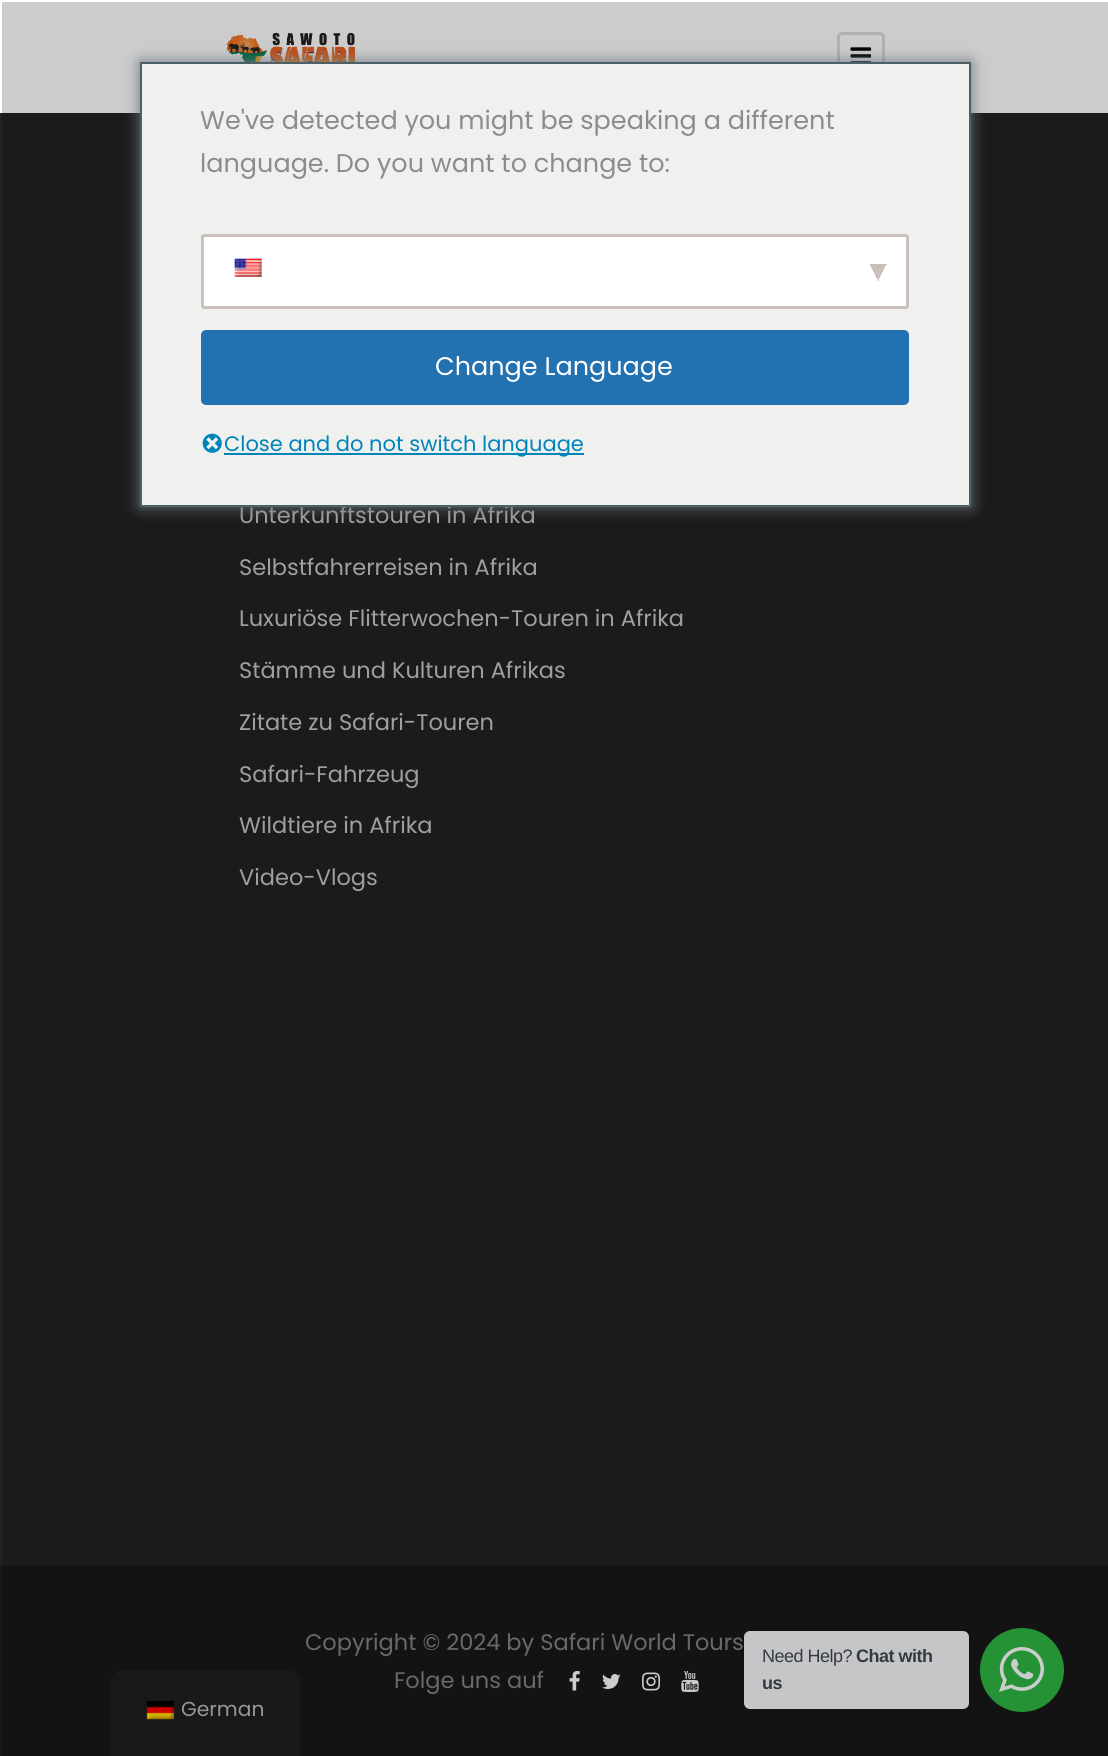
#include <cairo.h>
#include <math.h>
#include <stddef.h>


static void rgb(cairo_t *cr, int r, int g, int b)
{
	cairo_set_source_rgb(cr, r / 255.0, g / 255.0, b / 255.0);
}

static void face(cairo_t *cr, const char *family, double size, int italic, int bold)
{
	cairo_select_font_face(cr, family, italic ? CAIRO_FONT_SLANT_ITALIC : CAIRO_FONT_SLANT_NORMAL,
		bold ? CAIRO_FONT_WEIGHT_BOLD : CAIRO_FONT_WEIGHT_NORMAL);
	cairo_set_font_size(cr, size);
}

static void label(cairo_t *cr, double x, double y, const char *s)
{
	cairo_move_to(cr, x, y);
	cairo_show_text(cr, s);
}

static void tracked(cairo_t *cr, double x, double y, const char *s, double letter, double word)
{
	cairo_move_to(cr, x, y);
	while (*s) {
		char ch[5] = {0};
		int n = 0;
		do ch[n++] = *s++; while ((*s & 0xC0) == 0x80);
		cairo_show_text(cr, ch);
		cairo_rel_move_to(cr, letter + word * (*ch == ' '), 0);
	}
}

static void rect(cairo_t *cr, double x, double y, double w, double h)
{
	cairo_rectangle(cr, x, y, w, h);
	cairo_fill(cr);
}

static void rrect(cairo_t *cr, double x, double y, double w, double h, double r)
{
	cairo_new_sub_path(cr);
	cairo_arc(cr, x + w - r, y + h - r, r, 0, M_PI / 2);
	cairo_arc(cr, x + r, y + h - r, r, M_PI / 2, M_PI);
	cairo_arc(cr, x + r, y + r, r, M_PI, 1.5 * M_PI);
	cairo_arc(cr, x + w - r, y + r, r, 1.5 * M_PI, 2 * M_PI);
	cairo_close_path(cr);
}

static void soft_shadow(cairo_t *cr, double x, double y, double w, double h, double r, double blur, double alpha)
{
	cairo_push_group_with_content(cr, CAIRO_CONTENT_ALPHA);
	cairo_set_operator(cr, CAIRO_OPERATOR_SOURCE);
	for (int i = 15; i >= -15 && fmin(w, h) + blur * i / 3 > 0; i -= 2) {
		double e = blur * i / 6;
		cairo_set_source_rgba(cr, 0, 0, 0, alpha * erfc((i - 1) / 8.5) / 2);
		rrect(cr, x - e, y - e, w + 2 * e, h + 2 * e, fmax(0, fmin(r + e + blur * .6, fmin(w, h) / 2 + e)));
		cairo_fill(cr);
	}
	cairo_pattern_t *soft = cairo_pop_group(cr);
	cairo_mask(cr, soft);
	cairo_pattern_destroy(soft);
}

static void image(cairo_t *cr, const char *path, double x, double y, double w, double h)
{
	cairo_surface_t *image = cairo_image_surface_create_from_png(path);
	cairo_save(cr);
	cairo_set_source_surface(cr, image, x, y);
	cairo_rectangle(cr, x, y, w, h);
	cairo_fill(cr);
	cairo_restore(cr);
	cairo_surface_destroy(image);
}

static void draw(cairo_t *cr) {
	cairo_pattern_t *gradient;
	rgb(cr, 34, 34, 34);
	cairo_paint(cr);
	rgb(cr, 255, 255, 255);
	rect(cr, 0, 0, 1108, 113);
	image(cr, "image0.png", 226, 32, 130, 30);
	rrect(cr, 838.5, 33.5, 45, 45, 3.5);
	rgb(cr, 221, 221, 221);
	cairo_set_line_width(cr, 3);
	cairo_stroke(cr);
	image(cr, "image1.png", 850, 47, 22, 15);
	face(cr, "Poppins", 22.5, 0, 0);
	rgb(cr, 199, 199, 199);
	label(cr, 239, 523, "Unterkunftstouren in Afrika");
	label(cr, 239, 575, "Selbstfahrerreisen in Afrika");
	label(cr, 239, 626, "Luxuriöse Flitterwochen-Touren in Afrika");
	label(cr, 239, 678, "Stämme und Kulturen Afrikas");
	label(cr, 239, 730, "Zitate zu Safari-Touren");
	label(cr, 239, 782, "Safari-Fahrzeug");
	label(cr, 239, 833, "Wildtiere in Afrika");
	label(cr, 239, 885, "Video-Vlogs");
	rgb(cr, 24, 24, 24);
	rect(cr, 0, 1566, 1108, 190);
	rgb(cr, 131, 131, 131);
	label(cr, 305, 1650, "Copyright © 2024 by Safari World Tours");
	label(cr, 394, 1688, "Folge uns auf");
	image(cr, "image4.png", 569, 1671, 11, 20);
	image(cr, "image5.png", 602, 1674, 19, 15);
	image(cr, "image6.png", 642, 1672, 18, 19);
	image(cr, "image7.png", 681, 1671, 18, 21);
	rgb(cr, 245, 247, 249);
	rrect(cr, 744, 1631, 225, 78, 6);
	cairo_fill(cr);
	face(cr, "Liberation Sans", 18, 0, 0);
	rgb(cr, 67, 71, 78);
	tracked(cr, 762, 1662, "Need Help?", -0.5, 0);
	face(cr, "Liberation Sans", 18, 0, 1);
	tracked(cr, 856, 1662, "Chat with", -0.5, 0);
	tracked(cr, 762, 1689, "us", -0.5, 0);
	rgb(cr, 45, 183, 66);
	cairo_new_path(cr);
	cairo_arc(cr, 1022, 1670, 42, 0, 2 * M_PI);
	cairo_fill(cr);
	image(cr, "image8.png", 999, 1647, 45, 45);
	rgb(cr, 30, 30, 30);
	cairo_new_path(cr);
	cairo_move_to(cr, 123, 1670);
	cairo_line_to(cr, 288, 1670);
	cairo_curve_to(cr, 294.5, 1670, 300, 1675.5, 300, 1682);
	cairo_line_to(cr, 300, 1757);
	cairo_line_to(cr, 111, 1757);
	cairo_line_to(cr, 111, 1682);
	cairo_curve_to(cr, 111, 1675.5, 116.5, 1670, 123, 1670);
	cairo_close_path(cr);
	cairo_fill(cr);
	image(cr, "image9.png", 146, 1701, 28, 19);
	face(cr, "Poppins", 20.25, 0, 0);
	rgb(cr, 189, 189, 189);
	label(cr, 181, 1716, "German");
	cairo_set_source_rgba(cr, 0, 0, 0, 0.2);
	rect(cr, 2, 2, 1106, 1754);
	rgb(cr, 108, 119, 129);
	soft_shadow(cr, 140, 62, 831, 445, 0, 7.5, 1);
	rgb(cr, 240, 240, 238);
	cairo_rectangle(cr, 141, 63, 829, 443);
	cairo_fill_preserve(cr);
	rgb(cr, 76, 96, 102);
	cairo_set_line_width(cr, 2);
	cairo_stroke(cr);
	face(cr, "Poppins", 25.5, 0, 0);
	rgb(cr, 140, 140, 140);
	label(cr, 200, 129, "We've detected you might be speaking a different");
	label(cr, 200, 172, "language. Do you want to change to:");
	rgb(cr, 255, 255, 255);
	rrect(cr, 201, 234, 708, 75, 3);
	cairo_fill(cr);
	gradient = cairo_pattern_create_linear(875, 268, 890, 276);
	cairo_pattern_add_color_stop_rgba(gradient, 0.5, 0.788, 0.753, 0.733, 1);
	cairo_pattern_add_color_stop_rgba(gradient, 0.5, 1, 1, 1, 1);
	cairo_set_source(cr, gradient);
	cairo_pattern_destroy(gradient);
	rect(cr, 879, 264, 8, 14);
	gradient = cairo_pattern_create_linear(866, 276, 881, 268);
	cairo_pattern_add_color_stop_rgba(gradient, 0.5, 1, 1, 1, 1);
	cairo_pattern_add_color_stop_rgba(gradient, 0.5, 0.788, 0.753, 0.733, 1);
	cairo_set_source(cr, gradient);
	cairo_pattern_destroy(gradient);
	rect(cr, 870, 264, 9, 17);
	rrect(cr, 202.5, 235.5, 705, 72, 1.5);
	rgb(cr, 201, 192, 187);
	cairo_set_line_width(cr, 3);
	cairo_stroke(cr);
	image(cr, "image2.png", 234, 258, 28, 19);
	rgb(cr, 34, 113, 177);
	rrect(cr, 202, 331, 706, 73, 4);
	cairo_fill_preserve(cr);
	cairo_set_line_width(cr, 2);
	cairo_stroke(cr);
	rgb(cr, 255, 255, 255);
	label(cr, 435, 375, "Change Language");
	image(cr, "image3.png", 202, 433, 20, 20);
	rgb(cr, 0, 133, 186);
	rect(cr, 224, 453, 360, 2);
	face(cr, "Poppins", 21, 0, 0);
	label(cr, 224, 451, "Close and do not switch language");
}

int main(void) {
	cairo_surface_t *surface = cairo_image_surface_create(CAIRO_FORMAT_RGB24, 1108, 1756);
	cairo_t *cr = cairo_create(surface);
	cairo_font_options_t *options = cairo_font_options_create();
	cairo_font_options_set_hint_metrics(options, CAIRO_HINT_METRICS_OFF);
	cairo_font_options_set_hint_style(options, CAIRO_HINT_STYLE_NONE);
	cairo_set_font_options(cr, options);
	cairo_set_miter_limit(cr, 4);
	draw(cr);
	cairo_surface_write_to_png(surface, "render.png");
	cairo_font_options_destroy(options);
	cairo_destroy(cr);
	cairo_surface_destroy(surface);
	return 0;
}
